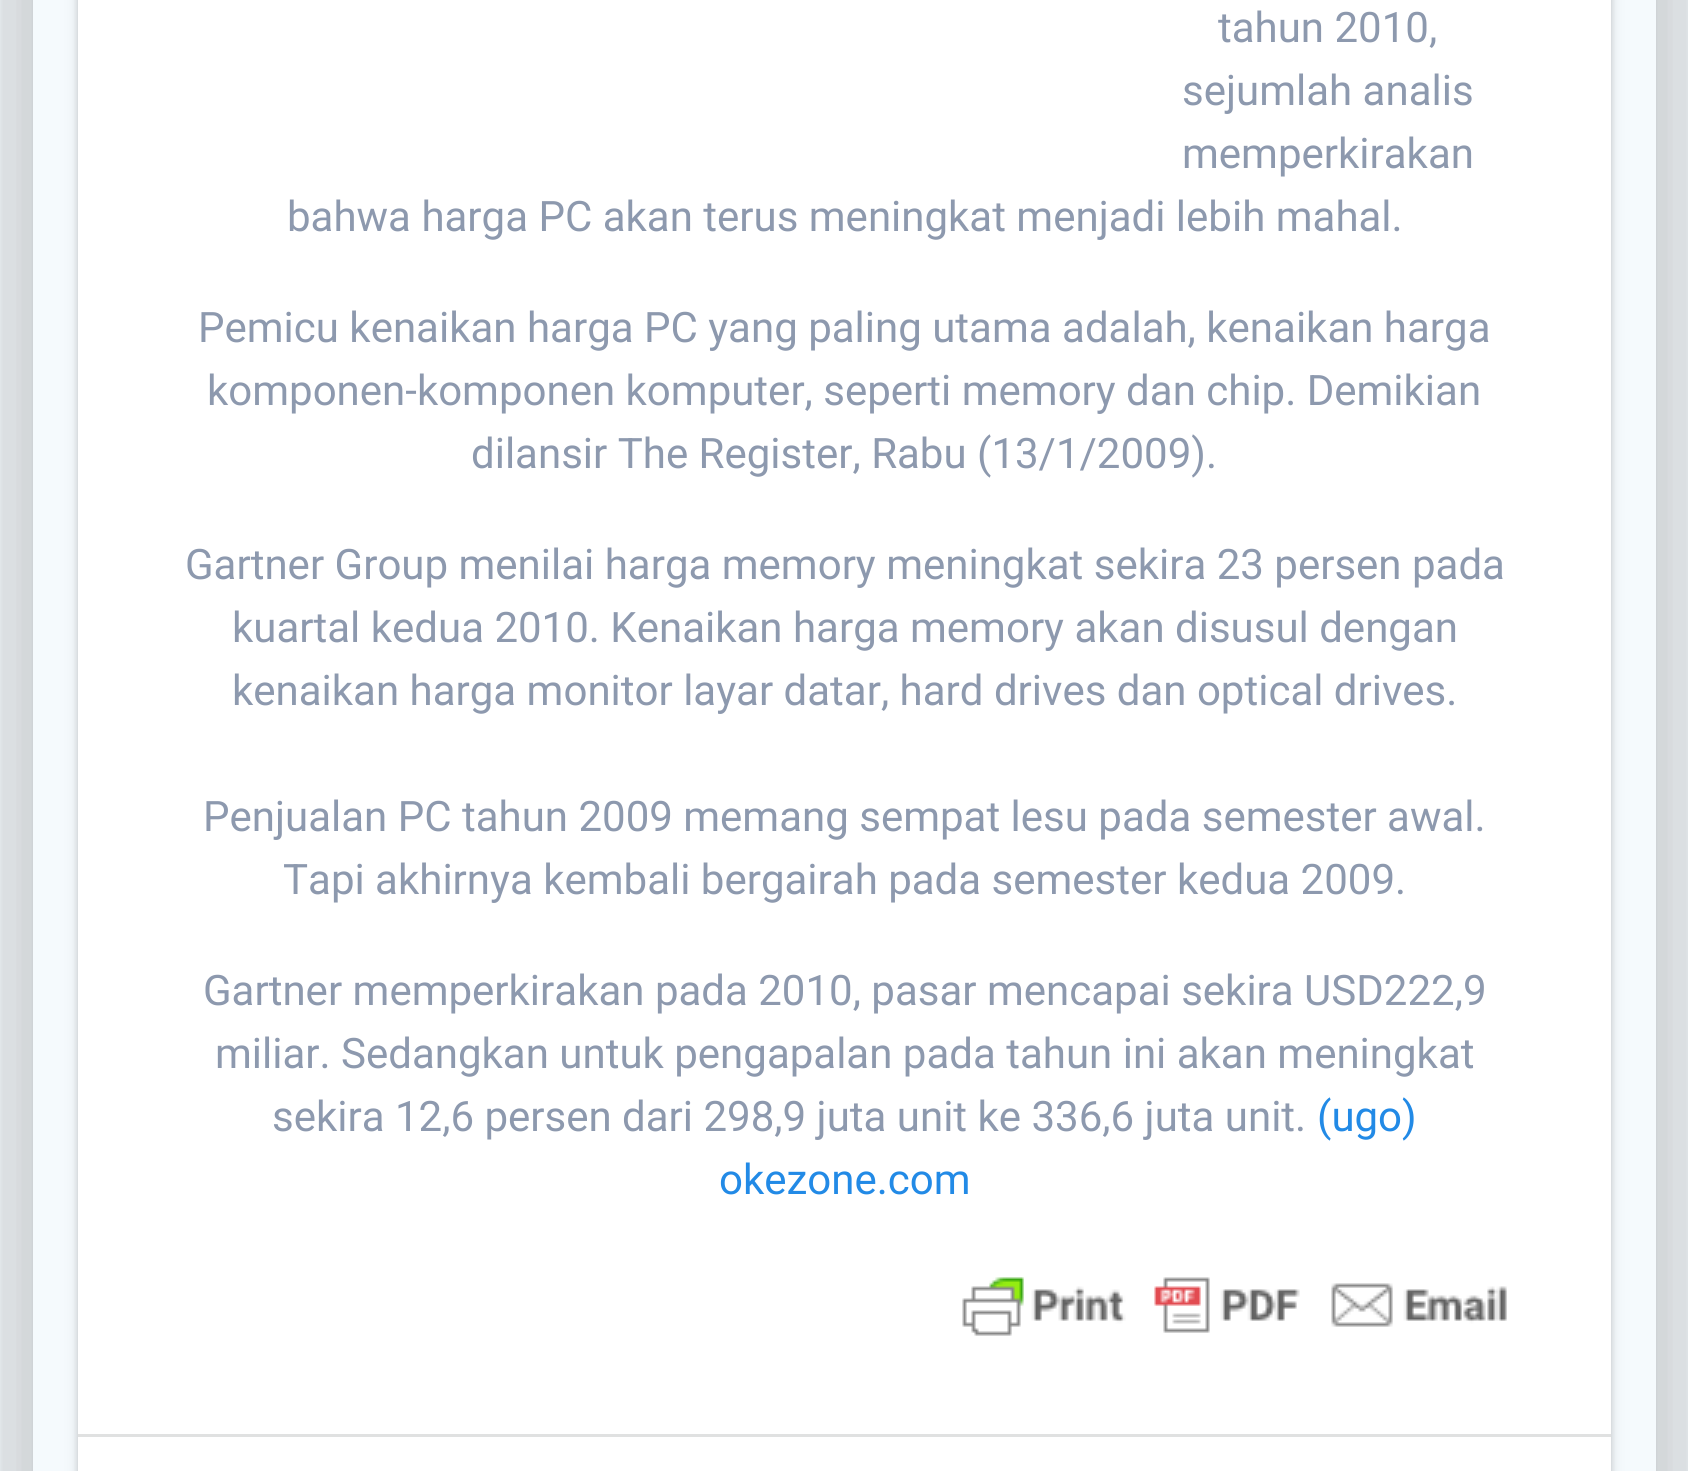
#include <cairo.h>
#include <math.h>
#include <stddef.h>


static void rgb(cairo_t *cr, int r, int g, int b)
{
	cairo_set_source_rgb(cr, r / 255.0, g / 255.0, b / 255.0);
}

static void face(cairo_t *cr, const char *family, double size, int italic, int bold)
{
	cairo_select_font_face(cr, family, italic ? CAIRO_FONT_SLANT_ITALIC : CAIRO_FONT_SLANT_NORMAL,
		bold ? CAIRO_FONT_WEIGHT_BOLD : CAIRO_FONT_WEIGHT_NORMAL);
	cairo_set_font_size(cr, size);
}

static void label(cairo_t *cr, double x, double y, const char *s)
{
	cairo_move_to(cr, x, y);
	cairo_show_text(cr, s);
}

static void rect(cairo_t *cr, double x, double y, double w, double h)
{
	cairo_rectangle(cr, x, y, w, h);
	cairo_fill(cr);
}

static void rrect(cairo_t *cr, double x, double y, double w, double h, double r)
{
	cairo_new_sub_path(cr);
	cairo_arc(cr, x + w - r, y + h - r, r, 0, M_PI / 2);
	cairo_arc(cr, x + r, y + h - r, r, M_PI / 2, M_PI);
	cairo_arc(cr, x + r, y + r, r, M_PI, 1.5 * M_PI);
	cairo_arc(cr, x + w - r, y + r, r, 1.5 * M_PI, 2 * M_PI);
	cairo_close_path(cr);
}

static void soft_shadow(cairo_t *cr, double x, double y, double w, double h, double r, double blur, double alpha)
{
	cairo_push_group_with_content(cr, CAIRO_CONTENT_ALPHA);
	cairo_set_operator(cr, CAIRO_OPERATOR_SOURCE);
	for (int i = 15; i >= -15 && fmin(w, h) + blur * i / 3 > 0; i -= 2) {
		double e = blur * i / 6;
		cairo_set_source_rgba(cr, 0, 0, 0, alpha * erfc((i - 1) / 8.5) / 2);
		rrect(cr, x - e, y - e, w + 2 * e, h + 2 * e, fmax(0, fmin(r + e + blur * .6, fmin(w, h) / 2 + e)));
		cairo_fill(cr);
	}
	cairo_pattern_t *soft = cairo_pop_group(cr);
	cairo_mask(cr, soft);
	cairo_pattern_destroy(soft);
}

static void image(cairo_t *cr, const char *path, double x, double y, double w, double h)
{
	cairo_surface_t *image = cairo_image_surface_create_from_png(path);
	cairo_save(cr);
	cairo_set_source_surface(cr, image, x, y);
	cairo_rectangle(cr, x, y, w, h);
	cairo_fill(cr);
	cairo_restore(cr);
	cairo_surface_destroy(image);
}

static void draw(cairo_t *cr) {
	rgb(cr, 245, 250, 253);
	cairo_paint(cr);
	cairo_save(cr);
	cairo_set_fill_rule(cr, CAIRO_FILL_RULE_EVEN_ODD);
	cairo_new_path(cr);
	cairo_move_to(cr, 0, 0);
	cairo_line_to(cr, 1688, 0);
	cairo_line_to(cr, 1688, 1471);
	cairo_line_to(cr, 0, 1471);
	cairo_close_path(cr);
	cairo_move_to(cr, 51, -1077);
	cairo_line_to(cr, 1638, -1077);
	cairo_curve_to(cr, 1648, -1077, 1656, -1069, 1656, -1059);
	cairo_line_to(cr, 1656, 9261);
	cairo_line_to(cr, 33, 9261);
	cairo_line_to(cr, 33, -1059);
	cairo_curve_to(cr, 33, -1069, 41, -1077, 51, -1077);
	cairo_close_path(cr);
	cairo_clip(cr);
	rgb(cr, 0, 0, 0);
	soft_shadow(cr, 12, -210, 1665, 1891, 39, 57, 0.12);
	soft_shadow(cr, 24, -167, 1641, 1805, 27, 46.5, 0.14);
	cairo_restore(cr);
	rgb(cr, 0, 0, 0);
	soft_shadow(cr, 78, -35, 1533, 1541, 12, 7.5, 0.12);
	soft_shadow(cr, 78, -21, 1533, 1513, 12, 3, 0.14);
	rgb(cr, 255, 255, 255);
	rect(cr, 78, 0, 1533, 1471);
	face(cr, "Roboto", 42, 0, 0);
	rgb(cr, 141, 153, 174);
	label(cr, 1218, 42, "tahun 2010,");
	label(cr, 1182, 105, "sejumlah analis");
	label(cr, 1182, 168, "memperkirakan");
	label(cr, 287, 231, "bahwa harga PC akan terus meningkat menjadi lebih mahal.");
	label(cr, 198, 342, "Pemicu kenaikan harga PC yang paling utama adalah, kenaikan harga");
	label(cr, 207, 405, "komponen-komponen komputer, seperti memory dan chip. Demikian");
	label(cr, 471, 468, "dilansir The Register, Rabu (13/1/2009).");
	label(cr, 185, 579, "Gartner Group menilai harga memory meningkat sekira 23 persen pada");
	label(cr, 232, 642, "kuartal kedua 2010. Kenaikan harga memory akan disusul dengan");
	label(cr, 232, 705, "kenaikan harga monitor layar datar, hard drives dan optical drives.");
	label(cr, 203, 831, "Penjualan PC tahun 2009 memang sempat lesu pada semester awal.");
	label(cr, 283, 894, "Tapi akhirnya kembali bergairah pada semester kedua 2009.");
	label(cr, 203, 1005, "Gartner memperkirakan pada 2010, pasar mencapai sekira USD222,9");
	label(cr, 215, 1068, "miliar. Sedangkan untuk pengapalan pada tahun ini akan meningkat");
	label(cr, 272, 1131, "sekira 12,6 persen dari 298,9 juta unit ke 336,6 juta unit.");
	rgb(cr, 34, 138, 230);
	label(cr, 1317, 1131, "(ugo)");
	label(cr, 719, 1194, "okezone.com");
	image(cr, "image0.png", 962, 1277, 545, 59);
	rgb(cr, 224, 225, 225);
	rect(cr, 78, 1434, 1533, 3);
}

int main(void) {
	cairo_surface_t *surface = cairo_image_surface_create(CAIRO_FORMAT_RGB24, 1688, 1471);
	cairo_t *cr = cairo_create(surface);
	cairo_font_options_t *options = cairo_font_options_create();
	cairo_font_options_set_hint_metrics(options, CAIRO_HINT_METRICS_OFF);
	cairo_font_options_set_hint_style(options, CAIRO_HINT_STYLE_NONE);
	cairo_set_font_options(cr, options);
	cairo_set_miter_limit(cr, 4);
	draw(cr);
	cairo_surface_write_to_png(surface, "render.png");
	cairo_font_options_destroy(options);
	cairo_destroy(cr);
	cairo_surface_destroy(surface);
	return 0;
}
